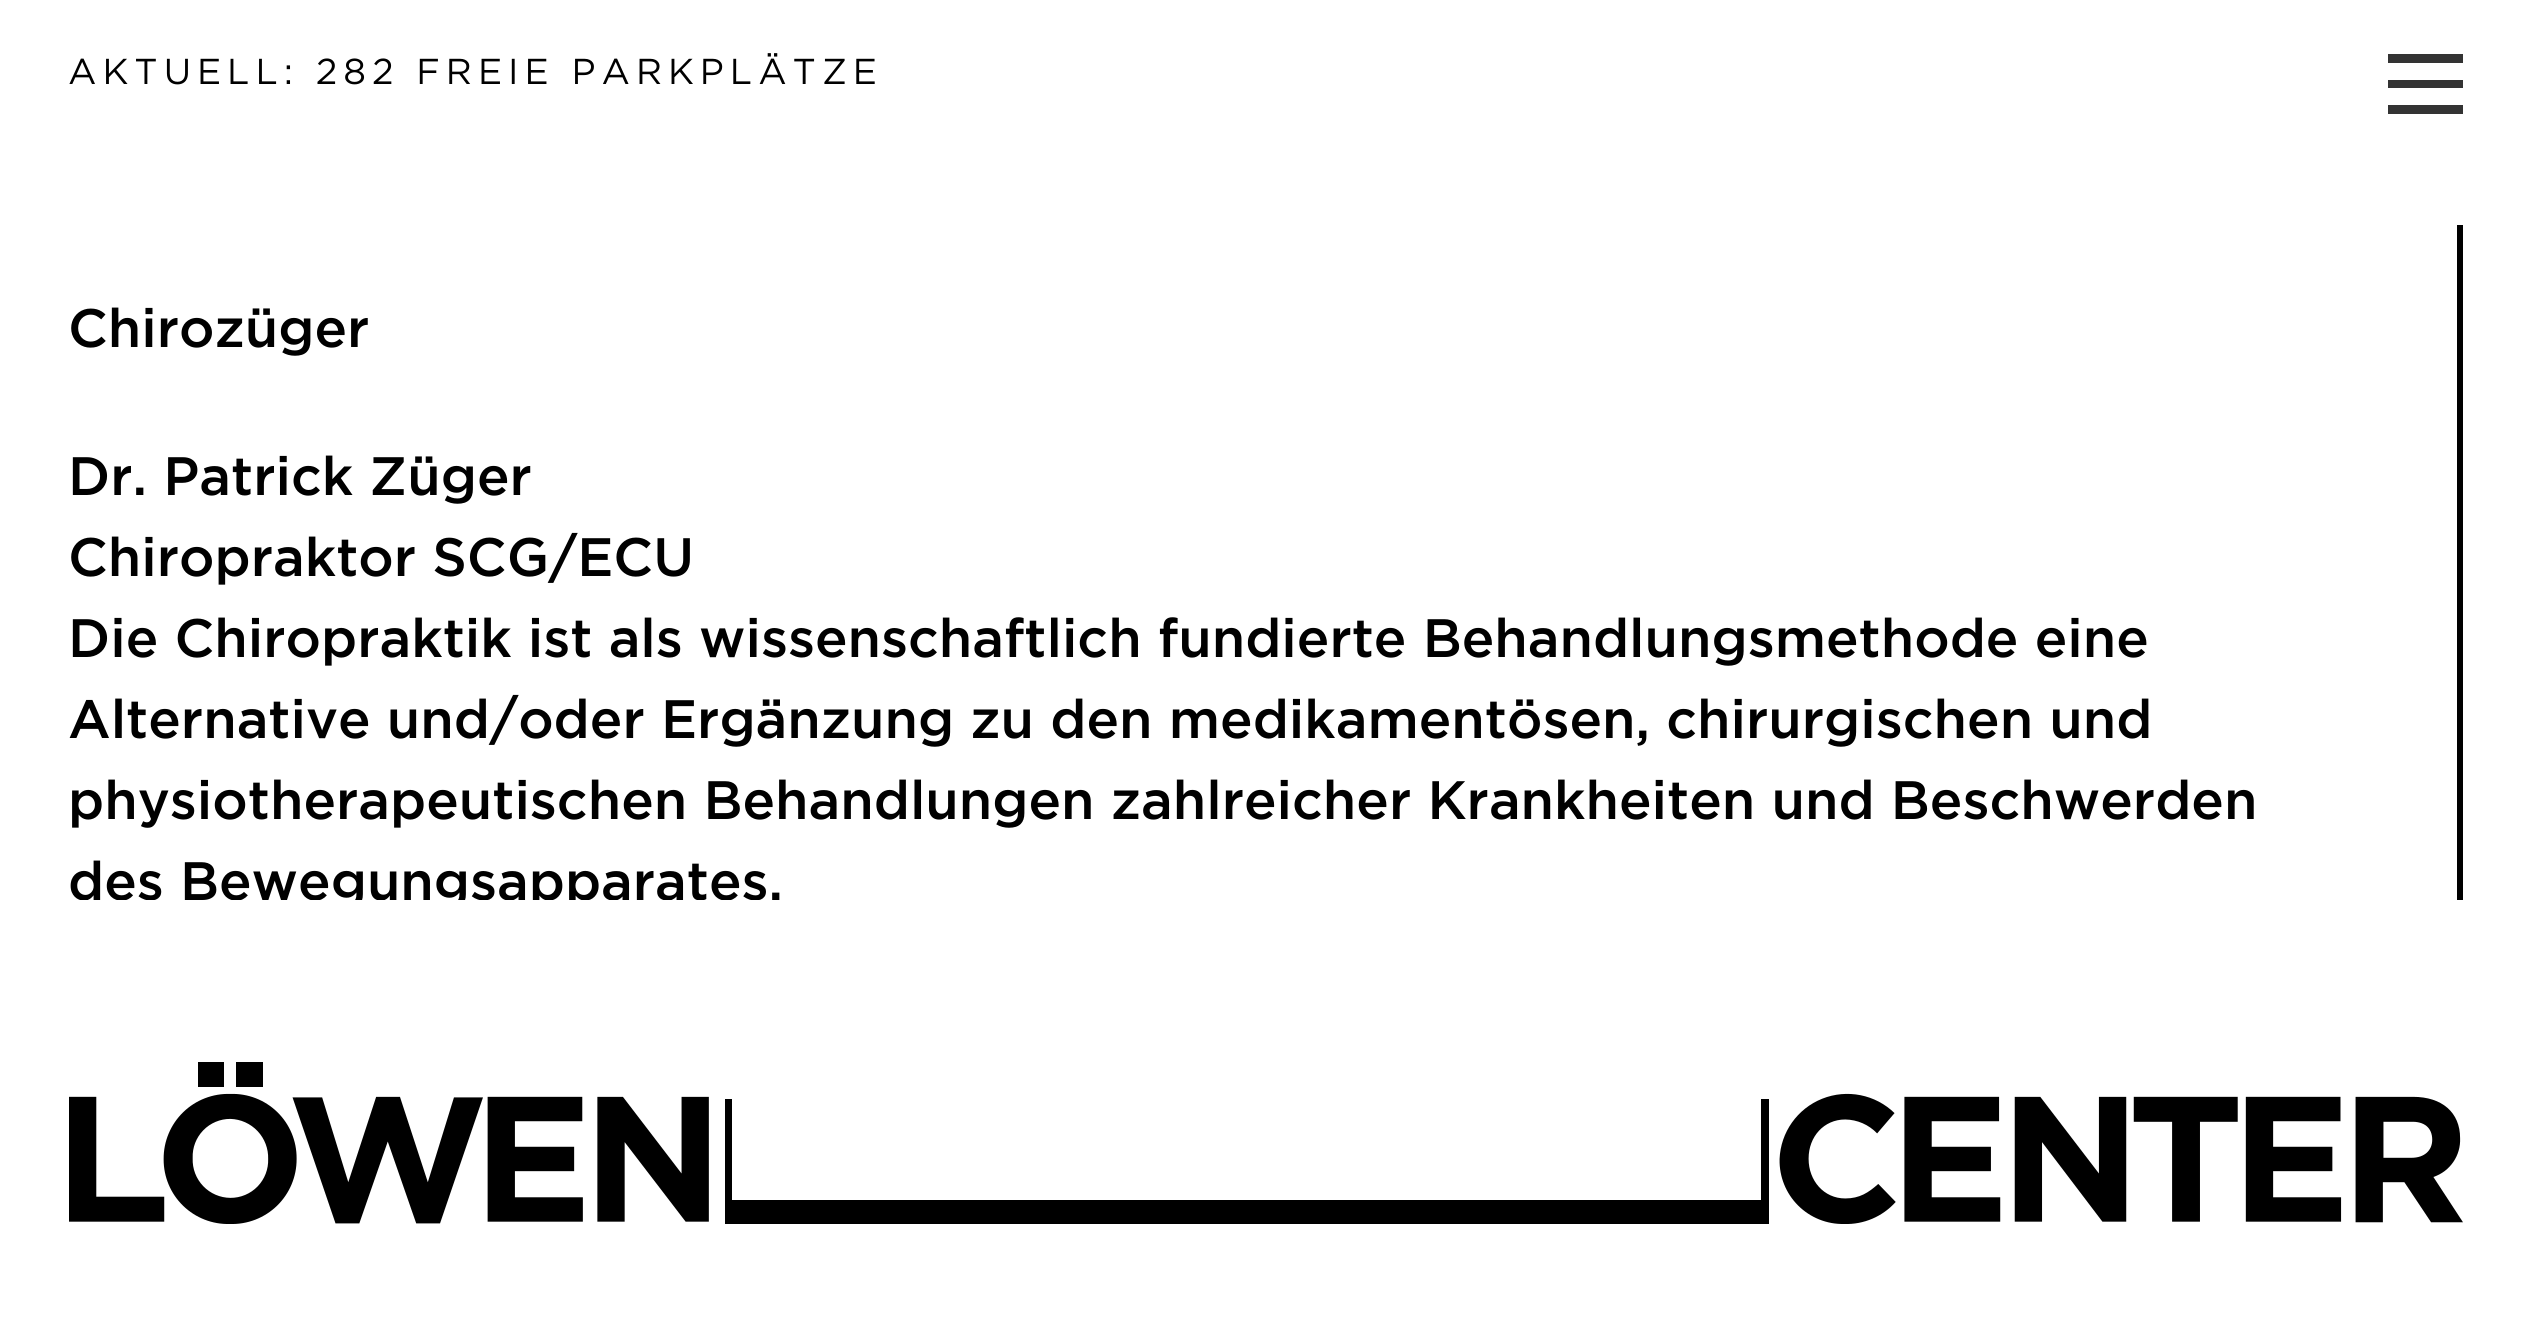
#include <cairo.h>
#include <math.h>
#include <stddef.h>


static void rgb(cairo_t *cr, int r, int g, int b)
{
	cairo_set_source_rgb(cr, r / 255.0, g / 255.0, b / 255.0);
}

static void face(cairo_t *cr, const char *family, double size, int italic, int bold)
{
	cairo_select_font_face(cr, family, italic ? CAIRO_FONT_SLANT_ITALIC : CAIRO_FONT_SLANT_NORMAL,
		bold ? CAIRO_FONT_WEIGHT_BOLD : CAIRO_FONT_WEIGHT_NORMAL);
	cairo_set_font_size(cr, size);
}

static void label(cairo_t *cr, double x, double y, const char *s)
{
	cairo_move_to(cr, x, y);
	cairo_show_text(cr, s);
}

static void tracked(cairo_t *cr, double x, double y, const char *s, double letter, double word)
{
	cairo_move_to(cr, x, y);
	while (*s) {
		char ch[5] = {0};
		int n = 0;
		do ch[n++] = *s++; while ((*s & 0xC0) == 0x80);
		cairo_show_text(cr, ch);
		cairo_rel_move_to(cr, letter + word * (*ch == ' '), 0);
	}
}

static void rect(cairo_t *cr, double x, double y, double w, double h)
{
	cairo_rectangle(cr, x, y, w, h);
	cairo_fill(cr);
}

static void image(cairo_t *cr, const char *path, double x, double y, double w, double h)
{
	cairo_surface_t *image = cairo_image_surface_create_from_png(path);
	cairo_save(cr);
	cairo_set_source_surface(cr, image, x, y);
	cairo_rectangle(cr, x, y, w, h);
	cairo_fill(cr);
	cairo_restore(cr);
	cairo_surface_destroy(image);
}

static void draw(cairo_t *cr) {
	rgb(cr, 255, 255, 255);
	cairo_paint(cr);
	face(cr, "Gotham", 36, 0, 0);
	rgb(cr, 0, 0, 0);
	tracked(cr, 68, 84, "AKTUELL: 282 FREIE PARKPLÄTZE", 6, 0);
	rgb(cr, 51, 51, 51);
	cairo_set_fill_rule(cr, CAIRO_FILL_RULE_EVEN_ODD);
	cairo_new_path(cr);
	cairo_move_to(cr, 2388, 54);
	cairo_line_to(cr, 2463, 54);
	cairo_line_to(cr, 2463, 63);
	cairo_line_to(cr, 2388, 63);
	cairo_close_path(cr);
	cairo_move_to(cr, 2388, 105);
	cairo_line_to(cr, 2463, 105);
	cairo_line_to(cr, 2463, 114);
	cairo_line_to(cr, 2388, 114);
	cairo_close_path(cr);
	cairo_move_to(cr, 2388, 80);
	cairo_line_to(cr, 2463, 80);
	cairo_line_to(cr, 2463, 88);
	cairo_line_to(cr, 2388, 88);
	cairo_close_path(cr);
	cairo_fill(cr);
	rgb(cr, 0, 0, 0);
	rect(cr, 2457, 225, 6, 675);
	face(cr, "Gotham Medium", 54, 0, 0);
	label(cr, 68, 347, "Chirozüger");
	label(cr, 68, 495, "Dr. Patrick Züger");
	label(cr, 68, 576, "Chiropraktor SCG/ECU");
	label(cr, 68, 657, "Die Chiropraktik ist als wissenschaftlich fundierte Behandlungsmethode eine");
	label(cr, 68, 738, "Alternative und/oder Ergänzung zu den medikamentösen, chirurgischen und");
	label(cr, 68, 819, "physiotherapeutischen Behandlungen zahlreicher Krankheiten und Beschwerden");
	label(cr, 68, 900, "des Bewegungsapparates.");
	rgb(cr, 255, 255, 255);
	rect(cr, 80, 900, 679, 9);
	image(cr, "image0.png", 69, 1062, 663, 162);
	rgb(cr, 0, 0, 0);
	rect(cr, 732, 1200, 1029, 24);
	image(cr, "image1.png", 1761, 1093, 702, 131);
}

int main(void) {
	cairo_surface_t *surface = cairo_image_surface_create(CAIRO_FORMAT_RGB24, 2528, 1332);
	cairo_t *cr = cairo_create(surface);
	cairo_font_options_t *options = cairo_font_options_create();
	cairo_font_options_set_hint_metrics(options, CAIRO_HINT_METRICS_OFF);
	cairo_font_options_set_hint_style(options, CAIRO_HINT_STYLE_NONE);
	cairo_set_font_options(cr, options);
	cairo_set_miter_limit(cr, 4);
	draw(cr);
	cairo_surface_write_to_png(surface, "render.png");
	cairo_font_options_destroy(options);
	cairo_destroy(cr);
	cairo_surface_destroy(surface);
	return 0;
}
